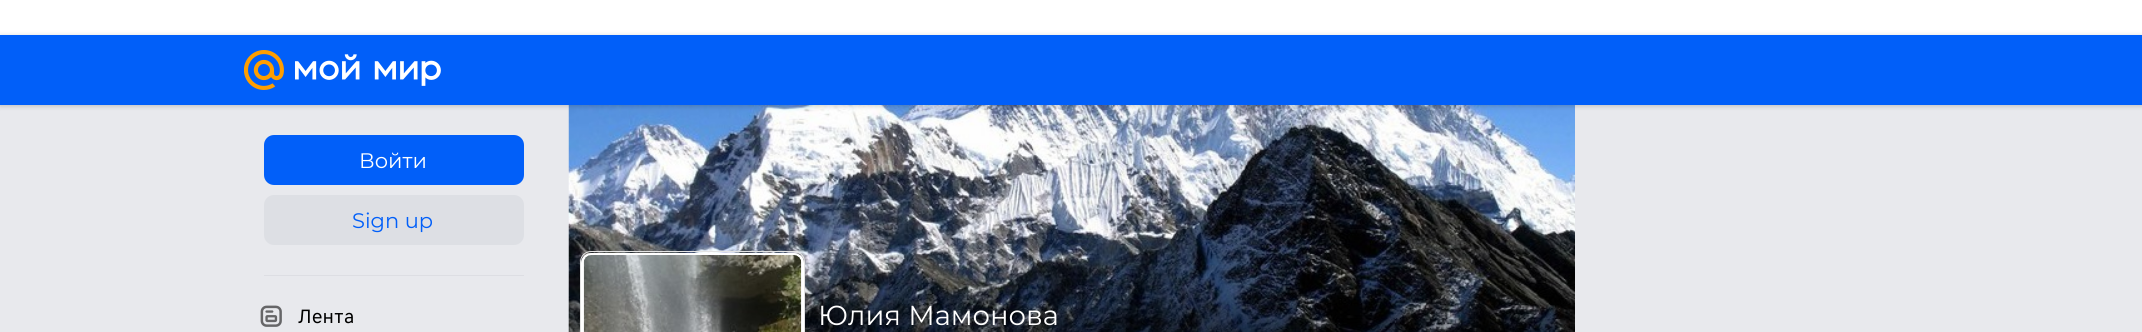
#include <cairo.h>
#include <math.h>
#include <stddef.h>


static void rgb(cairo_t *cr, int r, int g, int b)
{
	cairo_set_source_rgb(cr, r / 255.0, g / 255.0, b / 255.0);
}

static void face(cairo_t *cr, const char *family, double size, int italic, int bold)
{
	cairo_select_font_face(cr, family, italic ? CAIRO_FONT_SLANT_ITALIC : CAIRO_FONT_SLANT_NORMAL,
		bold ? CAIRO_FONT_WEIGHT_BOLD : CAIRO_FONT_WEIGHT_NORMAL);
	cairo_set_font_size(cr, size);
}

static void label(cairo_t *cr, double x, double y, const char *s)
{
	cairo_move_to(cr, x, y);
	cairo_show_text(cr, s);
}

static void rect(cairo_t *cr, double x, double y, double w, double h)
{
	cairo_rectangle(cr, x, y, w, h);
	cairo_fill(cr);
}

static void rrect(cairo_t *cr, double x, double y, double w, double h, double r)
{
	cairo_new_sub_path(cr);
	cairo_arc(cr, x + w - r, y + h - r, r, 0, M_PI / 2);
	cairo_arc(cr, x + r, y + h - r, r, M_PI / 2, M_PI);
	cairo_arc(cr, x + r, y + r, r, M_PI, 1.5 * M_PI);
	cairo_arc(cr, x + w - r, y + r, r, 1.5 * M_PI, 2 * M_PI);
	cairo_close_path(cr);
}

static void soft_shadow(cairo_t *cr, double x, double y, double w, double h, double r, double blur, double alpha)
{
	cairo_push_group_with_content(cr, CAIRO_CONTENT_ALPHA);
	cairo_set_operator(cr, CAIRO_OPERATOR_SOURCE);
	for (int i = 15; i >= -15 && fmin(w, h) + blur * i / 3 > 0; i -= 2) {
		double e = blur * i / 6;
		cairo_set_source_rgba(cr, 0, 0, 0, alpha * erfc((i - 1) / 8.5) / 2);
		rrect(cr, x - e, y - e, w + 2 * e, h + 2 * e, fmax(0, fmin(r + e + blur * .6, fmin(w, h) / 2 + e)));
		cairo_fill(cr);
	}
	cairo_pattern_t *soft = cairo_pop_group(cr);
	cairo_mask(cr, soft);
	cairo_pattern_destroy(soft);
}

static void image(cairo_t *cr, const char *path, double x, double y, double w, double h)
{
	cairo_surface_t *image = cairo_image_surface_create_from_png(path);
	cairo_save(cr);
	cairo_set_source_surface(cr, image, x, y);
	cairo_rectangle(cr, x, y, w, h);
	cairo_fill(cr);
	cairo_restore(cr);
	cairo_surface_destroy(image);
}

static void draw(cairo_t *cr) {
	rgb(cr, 232, 233, 237);
	cairo_paint(cr);
	rgb(cr, 255, 255, 255);
	rect(cr, 0, 0, 2142, 35);
	image(cr, "image3.png", 568, 105, 1007, 227);
	rgb(cr, 0, 0, 0);
	soft_shadow(cr, 0, 36, 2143, 70, 0, 2.5, 0.2);
	rgb(cr, 1, 95, 249);
	rect(cr, 0, 35, 2142, 70);
	image(cr, "image0.png", 244, 50, 197, 40);
	rrect(cr, 264, 135, 260, 50, 10);
	cairo_fill(cr);
	face(cr, "Montserrat", 21, 0, 0);
	rgb(cr, 255, 255, 255);
	label(cr, 359, 168, "Войти");
	rgb(cr, 221, 223, 228);
	rrect(cr, 264, 195, 260, 50, 10);
	cairo_fill(cr);
	rgb(cr, 1, 95, 249);
	label(cr, 352, 228, "Sign up");
	rgb(cr, 221, 222, 227);
	rect(cr, 264, 275, 260, 1);
	image(cr, "image1.png", 260, 305, 22, 22);
	face(cr, "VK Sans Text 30", 19, 0, 0);
	rgb(cr, 0, 0, 0);
	label(cr, 298, 323, "Лента");
	image(cr, "image4.png", 568, 279, 1007, 53);
	rrect(cr, 580.5, 251.5, 224, 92, 10.5);
	rgb(cr, 227, 227, 227);
	cairo_set_line_width(cr, 1);
	cairo_stroke(cr);
	rgb(cr, 255, 255, 255);
	rrect(cr, 581, 253, 223, 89, 10);
	cairo_fill(cr);
	image(cr, "image2.png", 583, 255, 219, 77);
	face(cr, "Montserrat", 27.5, 0, 0);
	label(cr, 818, 325, "Юлия Мамонова");
}

int main(void) {
	cairo_surface_t *surface = cairo_image_surface_create(CAIRO_FORMAT_RGB24, 2142, 332);
	cairo_t *cr = cairo_create(surface);
	cairo_font_options_t *options = cairo_font_options_create();
	cairo_font_options_set_hint_metrics(options, CAIRO_HINT_METRICS_OFF);
	cairo_font_options_set_hint_style(options, CAIRO_HINT_STYLE_NONE);
	cairo_set_font_options(cr, options);
	cairo_set_miter_limit(cr, 4);
	draw(cr);
	cairo_surface_write_to_png(surface, "render.png");
	cairo_font_options_destroy(options);
	cairo_destroy(cr);
	cairo_surface_destroy(surface);
	return 0;
}
